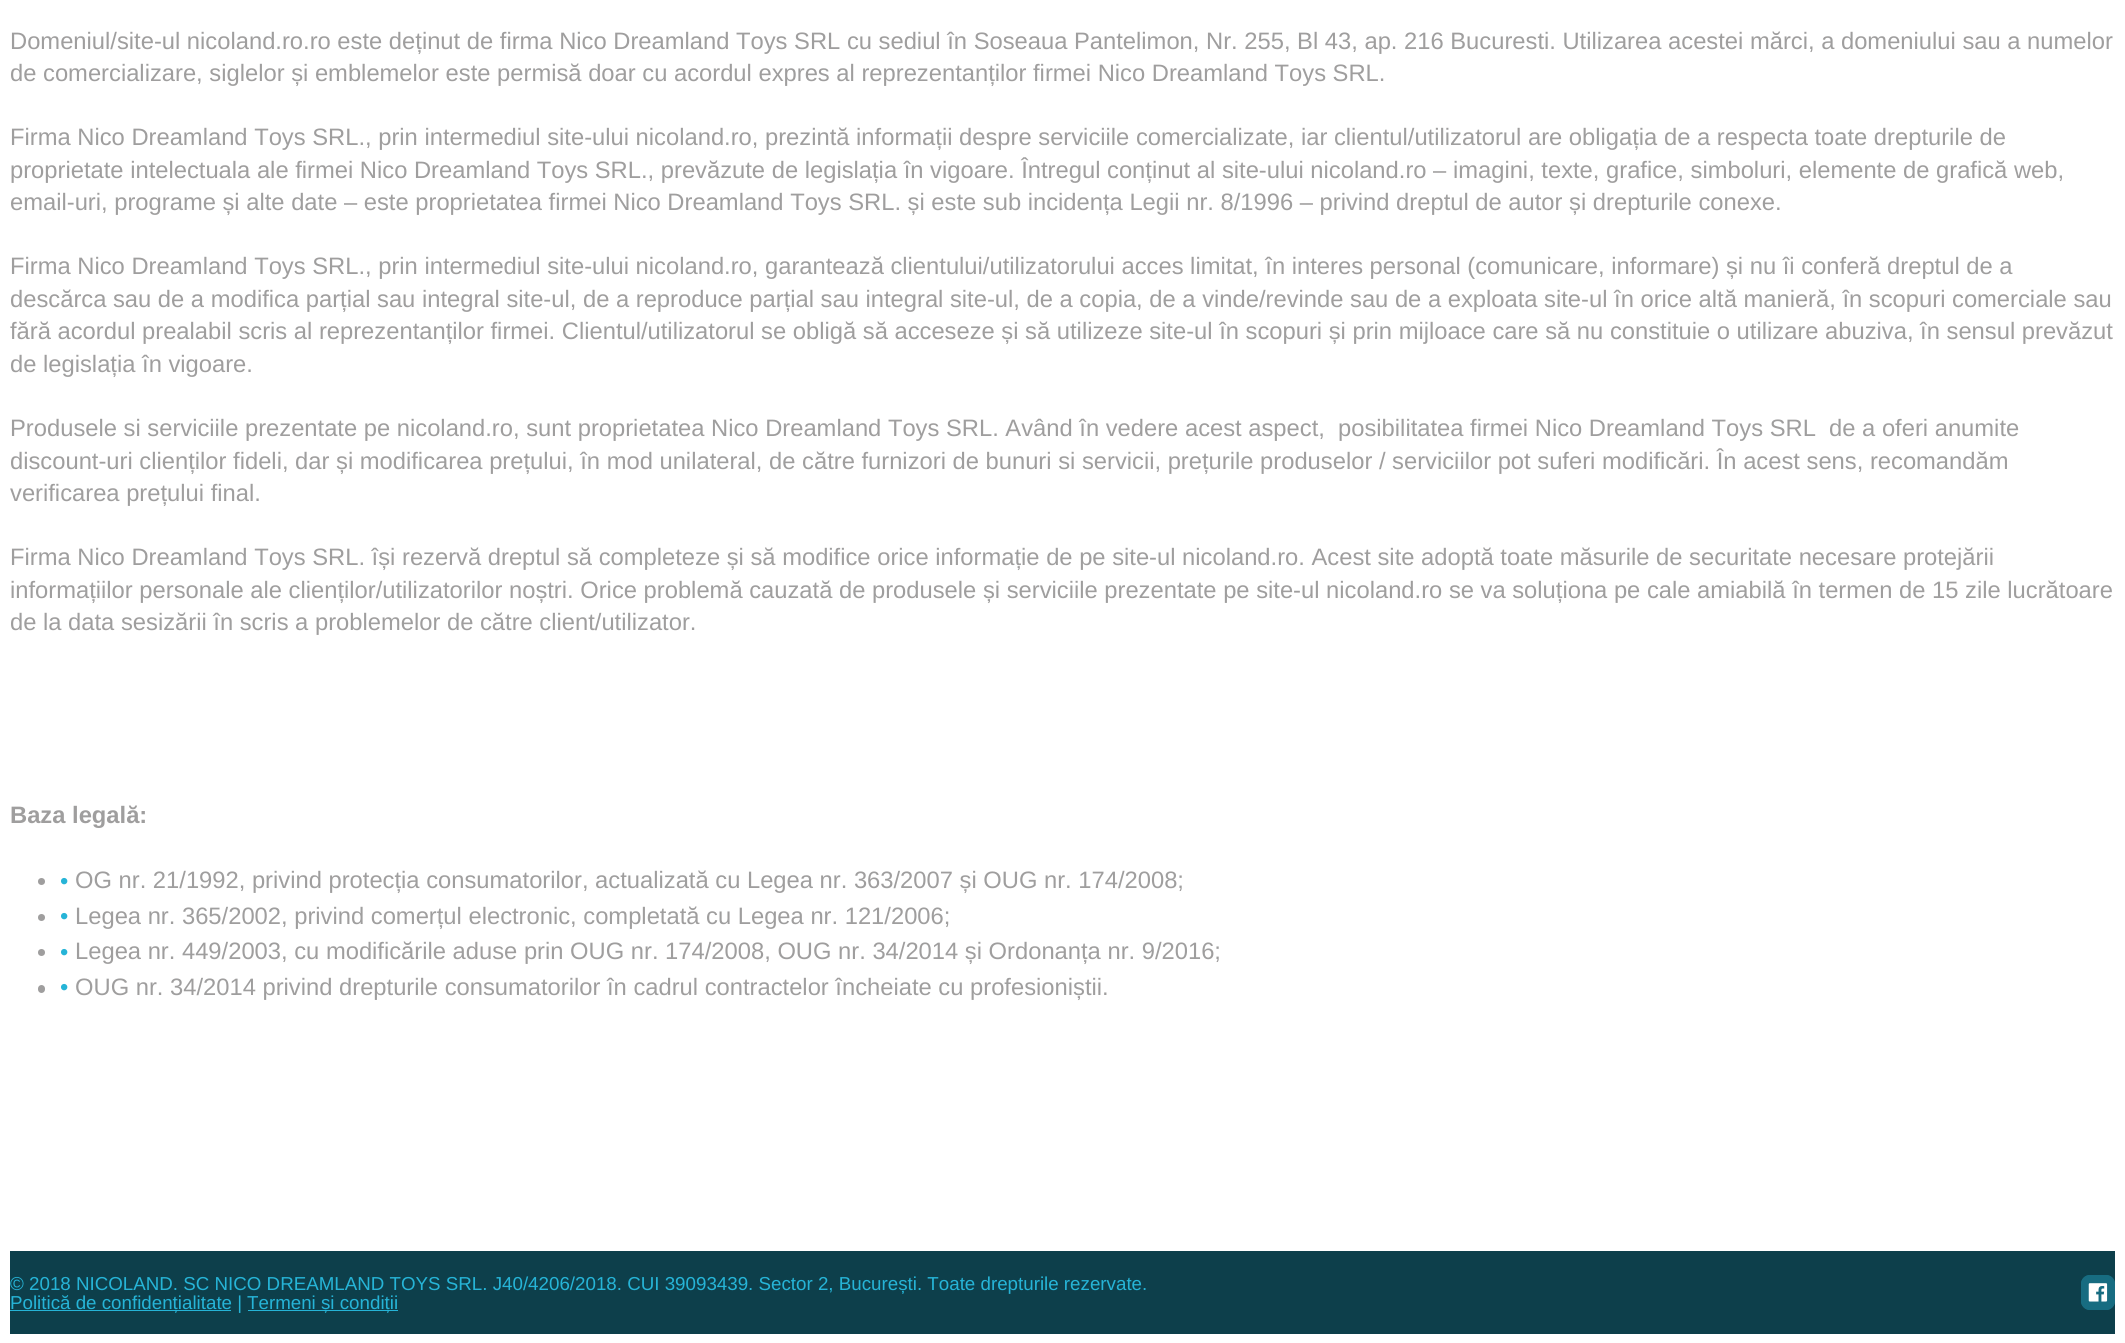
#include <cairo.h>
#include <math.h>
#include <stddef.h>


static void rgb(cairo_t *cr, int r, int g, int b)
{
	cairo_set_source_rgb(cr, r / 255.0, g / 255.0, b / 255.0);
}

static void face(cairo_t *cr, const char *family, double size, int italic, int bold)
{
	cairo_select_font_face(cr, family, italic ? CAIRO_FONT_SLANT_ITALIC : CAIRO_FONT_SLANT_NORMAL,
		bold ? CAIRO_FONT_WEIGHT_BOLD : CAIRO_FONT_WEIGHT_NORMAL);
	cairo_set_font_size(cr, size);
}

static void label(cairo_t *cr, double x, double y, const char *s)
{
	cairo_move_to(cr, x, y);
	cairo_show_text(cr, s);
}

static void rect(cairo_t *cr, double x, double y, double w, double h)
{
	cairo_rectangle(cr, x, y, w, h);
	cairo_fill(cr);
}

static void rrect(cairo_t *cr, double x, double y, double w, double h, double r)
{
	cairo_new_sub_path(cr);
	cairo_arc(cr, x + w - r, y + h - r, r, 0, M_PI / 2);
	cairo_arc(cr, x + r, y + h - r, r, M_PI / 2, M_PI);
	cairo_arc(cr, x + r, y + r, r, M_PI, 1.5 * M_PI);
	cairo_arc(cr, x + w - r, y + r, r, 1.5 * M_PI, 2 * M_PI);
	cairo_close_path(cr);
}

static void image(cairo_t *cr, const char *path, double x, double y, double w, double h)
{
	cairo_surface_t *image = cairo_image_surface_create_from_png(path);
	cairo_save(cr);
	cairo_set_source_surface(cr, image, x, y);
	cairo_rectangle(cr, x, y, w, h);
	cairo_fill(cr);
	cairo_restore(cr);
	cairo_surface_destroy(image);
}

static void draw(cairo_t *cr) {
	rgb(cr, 255, 255, 255);
	cairo_paint(cr);
	face(cr, "Liberation Sans", 23.75, 0, 0);
	rgb(cr, 159, 158, 158);
	label(cr, 10, 49, "Domeniul/site-ul nicoland.ro.ro este deținut de firma Nico Dreamland Toys SRL cu sediul în Soseaua Pantelimon, Nr. 255, Bl 43, ap. 216 Bucuresti. Utilizarea acestei mărci, a domeniului sau a numelor");
	label(cr, 10, 81, "de comercializare, siglelor și emblemelor este permisă doar cu acordul expres al reprezentanților firmei Nico Dreamland Toys SRL.");
	label(cr, 10, 145, "Firma Nico Dreamland Toys SRL., prin intermediul site-ului nicoland.ro, prezintă informații despre serviciile comercializate, iar clientul/utilizatorul are obligația de a respecta toate drepturile de");
	label(cr, 10, 178, "proprietate intelectuala ale firmei Nico Dreamland Toys SRL., prevăzute de legislația în vigoare. Întregul conținut al site-ului nicoland.ro – imagini, texte, grafice, simboluri, elemente de grafică web,");
	label(cr, 10, 210, "email-uri, programe și alte date – este proprietatea firmei Nico Dreamland Toys SRL. și este sub incidența Legii nr. 8/1996 – privind dreptul de autor și drepturile conexe.");
	label(cr, 10, 274, "Firma Nico Dreamland Toys SRL., prin intermediul site-ului nicoland.ro, garantează clientului/utilizatorului acces limitat, în interes personal (comunicare, informare) și nu îi conferă dreptul de a");
	label(cr, 10, 307, "descărca sau de a modifica parțial sau integral site-ul, de a reproduce parțial sau integral site-ul, de a copia, de a vinde/revinde sau de a exploata site-ul în orice altă manieră, în scopuri comerciale sau");
	label(cr, 10, 339, "fără acordul prealabil scris al reprezentanților firmei. Clientul/utilizatorul se obligă să acceseze și să utilizeze site-ul în scopuri și prin mijloace care să nu constituie o utilizare abuziva, în sensul prevăzut");
	label(cr, 10, 372, "de legislația în vigoare.");
	label(cr, 10, 436, "Produsele si serviciile prezentate pe nicoland.ro, sunt proprietatea Nico Dreamland Toys SRL. Având în vedere acest aspect,  posibilitatea firmei Nico Dreamland Toys SRL  de a oferi anumite");
	label(cr, 10, 469, "discount-uri clienților fideli, dar și modificarea prețului, în mod unilateral, de către furnizori de bunuri si servicii, prețurile produselor / serviciilor pot suferi modificări. În acest sens, recomandăm");
	label(cr, 10, 501, "verificarea prețului final.");
	label(cr, 10, 565, "Firma Nico Dreamland Toys SRL. își rezervă dreptul să completeze și să modifice orice informație de pe site-ul nicoland.ro. Acest site adoptă toate măsurile de securitate necesare protejării");
	label(cr, 10, 598, "informațiilor personale ale clienților/utilizatorilor noștri. Orice problemă cauzată de produsele și serviciile prezentate pe site-ul nicoland.ro se va soluționa pe cale amiabilă în termen de 15 zile lucrătoare");
	label(cr, 10, 630, "de la data sesizării în scris a problemelor de către client/utilizator.");
	face(cr, "Liberation Sans", 23.75, 0, 1);
	label(cr, 10, 823, "Baza legală:");
	cairo_new_path(cr);
	cairo_arc(cr, 41.5, 881.5, 3.5, 0, 2 * M_PI);
	cairo_fill(cr);
	face(cr, "Liberation Sans", 23.75, 0, 0);
	rgb(cr, 38, 180, 215);
	label(cr, 60, 889, "•");
	rgb(cr, 159, 158, 158);
	label(cr, 75, 888, "OG nr. 21/1992, privind protecția consumatorilor, actualizată cu Legea nr. 363/2007 și OUG nr. 174/2008;");
	cairo_new_path(cr);
	cairo_arc(cr, 41.5, 917.5, 3.5, 0, 2 * M_PI);
	cairo_fill(cr);
	rgb(cr, 38, 180, 215);
	label(cr, 60, 924, "•");
	rgb(cr, 159, 158, 158);
	label(cr, 75, 924, "Legea nr. 365/2002, privind comerțul electronic, completată cu Legea nr. 121/2006;");
	cairo_new_path(cr);
	cairo_arc(cr, 41.5, 952.5, 3.5, 0, 2 * M_PI);
	cairo_fill(cr);
	rgb(cr, 38, 180, 215);
	label(cr, 60, 960, "•");
	rgb(cr, 159, 158, 158);
	label(cr, 75, 959, "Legea nr. 449/2003, cu modificările aduse prin OUG nr. 174/2008, OUG nr. 34/2014 și Ordonanța nr. 9/2016;");
	rrect(cr, 38, 985, 7, 8, 3.5);
	cairo_fill(cr);
	rgb(cr, 38, 180, 215);
	label(cr, 60, 995, "•");
	rgb(cr, 159, 158, 158);
	label(cr, 75, 995, "OUG nr. 34/2014 privind drepturile consumatorilor în cadrul contractelor încheiate cu profesioniștii.");
	rgb(cr, 13, 63, 75);
	rect(cr, 10, 1251, 2105, 83);
	face(cr, "Liberation Sans", 18.75, 0, 0);
	rgb(cr, 38, 180, 215);
	label(cr, 10, 1290, "© 2018 NICOLAND. SC NICO DREAMLAND TOYS SRL. J40/4206/2018. CUI 39093439. Sector 2, București. Toate drepturile rezervate.");
	rect(cr, 10, 1310, 221, 1);
	label(cr, 10, 1309, "Politică de confidențialitate |");
	rect(cr, 248, 1310, 150, 1);
	label(cr, 247, 1309, "Termeni și condiții");
	rrect(cr, 2081, 1275, 34, 35, 9);
	cairo_fill(cr);
	cairo_set_source_rgba(cr, 0, 0, 0, 0.4);
	rrect(cr, 2081, 1275, 34, 35, 9);
	cairo_fill(cr);
	image(cr, "image0.png", 2088, 1283, 20, 19);
}

int main(void) {
	cairo_surface_t *surface = cairo_image_surface_create(CAIRO_FORMAT_RGB24, 2125, 1343);
	cairo_t *cr = cairo_create(surface);
	cairo_font_options_t *options = cairo_font_options_create();
	cairo_font_options_set_hint_metrics(options, CAIRO_HINT_METRICS_OFF);
	cairo_font_options_set_hint_style(options, CAIRO_HINT_STYLE_NONE);
	cairo_set_font_options(cr, options);
	cairo_set_miter_limit(cr, 4);
	draw(cr);
	cairo_surface_write_to_png(surface, "render.png");
	cairo_font_options_destroy(options);
	cairo_destroy(cr);
	cairo_surface_destroy(surface);
	return 0;
}
